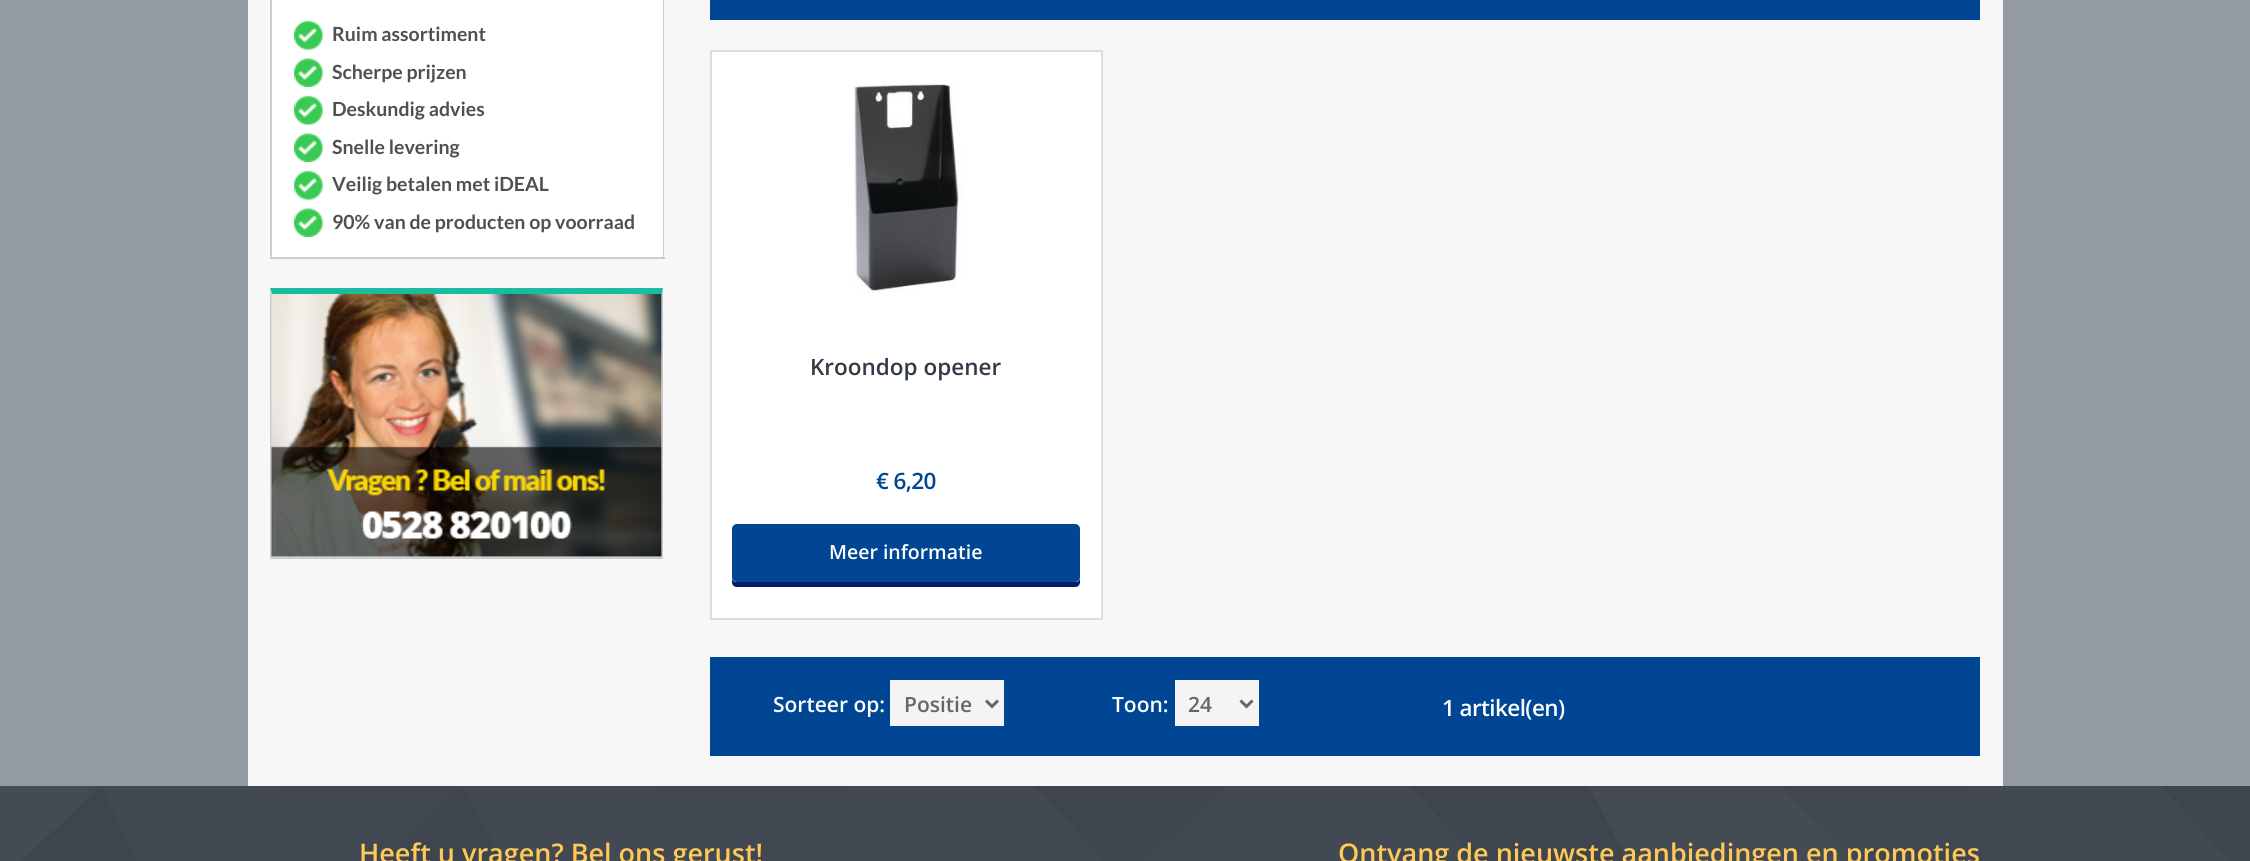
#include <cairo.h>
#include <math.h>
#include <stddef.h>


static void rgb(cairo_t *cr, int r, int g, int b)
{
	cairo_set_source_rgb(cr, r / 255.0, g / 255.0, b / 255.0);
}

static void face(cairo_t *cr, const char *family, double size, int italic, int bold)
{
	cairo_select_font_face(cr, family, italic ? CAIRO_FONT_SLANT_ITALIC : CAIRO_FONT_SLANT_NORMAL,
		bold ? CAIRO_FONT_WEIGHT_BOLD : CAIRO_FONT_WEIGHT_NORMAL);
	cairo_set_font_size(cr, size);
}

static void label(cairo_t *cr, double x, double y, const char *s)
{
	cairo_move_to(cr, x, y);
	cairo_show_text(cr, s);
}

static void tracked(cairo_t *cr, double x, double y, const char *s, double letter, double word)
{
	cairo_move_to(cr, x, y);
	while (*s) {
		char ch[5] = {0};
		int n = 0;
		do ch[n++] = *s++; while ((*s & 0xC0) == 0x80);
		cairo_show_text(cr, ch);
		cairo_rel_move_to(cr, letter + word * (*ch == ' '), 0);
	}
}

static void rect(cairo_t *cr, double x, double y, double w, double h)
{
	cairo_rectangle(cr, x, y, w, h);
	cairo_fill(cr);
}

static void rrect(cairo_t *cr, double x, double y, double w, double h, double r)
{
	cairo_new_sub_path(cr);
	cairo_arc(cr, x + w - r, y + h - r, r, 0, M_PI / 2);
	cairo_arc(cr, x + r, y + h - r, r, M_PI / 2, M_PI);
	cairo_arc(cr, x + r, y + r, r, M_PI, 1.5 * M_PI);
	cairo_arc(cr, x + w - r, y + r, r, 1.5 * M_PI, 2 * M_PI);
	cairo_close_path(cr);
}

static void image(cairo_t *cr, const char *path, double x, double y, double w, double h)
{
	cairo_surface_t *image = cairo_image_surface_create_from_png(path);
	cairo_save(cr);
	cairo_set_source_surface(cr, image, x, y);
	cairo_rectangle(cr, x, y, w, h);
	cairo_fill(cr);
	cairo_restore(cr);
	cairo_surface_destroy(image);
}

static void draw(cairo_t *cr) {
	rgb(cr, 147, 154, 161);
	cairo_paint(cr);
	rgb(cr, 247, 247, 247);
	rect(cr, 248, 0, 1755, 786);
	rgb(cr, 255, 255, 255);
	rect(cr, 272, 0, 391, 257);
	rgb(cr, 204, 204, 204);
	cairo_new_path(cr);
	cairo_move_to(cr, 664, -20);
	cairo_line_to(cr, 664, 258);
	cairo_line_to(cr, 663, 256);
	cairo_line_to(cr, 663, -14);
	cairo_close_path(cr);
	cairo_fill(cr);
	rect(cr, 270, 257, 395, 2);
	cairo_new_path(cr);
	cairo_move_to(cr, 270, 258);
	cairo_line_to(cr, 270, -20);
	cairo_line_to(cr, 272, -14);
	cairo_line_to(cr, 272, 256);
	cairo_close_path(cr);
	cairo_fill(cr);
	image(cr, "image0.png", 294, 20, 29, 30);
	face(cr, "Lato", 19.5, 0, 1);
	rgb(cr, 81, 80, 80);
	label(cr, 332, 41, "Ruim assortiment");
	image(cr, "image1.png", 294, 58, 29, 29);
	label(cr, 332, 79, "Scherpe prijzen");
	image(cr, "image0.png", 294, 95, 29, 30);
	label(cr, 332, 116, "Deskundig advies");
	image(cr, "image1.png", 294, 133, 29, 29);
	label(cr, 332, 154, "Snelle levering");
	image(cr, "image0.png", 294, 170, 29, 30);
	label(cr, 332, 191, "Veilig betalen met iDEAL");
	image(cr, "image1.png", 294, 208, 29, 29);
	label(cr, 332, 229, "90% van de producten op voorraad");
	rgb(cr, 25, 188, 159);
	cairo_new_path(cr);
	cairo_move_to(cr, 270, 288);
	cairo_line_to(cr, 663, 288);
	cairo_line_to(cr, 662, 294);
	cairo_line_to(cr, 272, 294);
	cairo_close_path(cr);
	cairo_fill(cr);
	rgb(cr, 204, 204, 204);
	cairo_new_path(cr);
	cairo_move_to(cr, 663, 288);
	cairo_line_to(cr, 663, 558);
	cairo_line_to(cr, 662, 556);
	cairo_line_to(cr, 662, 294);
	cairo_close_path(cr);
	cairo_fill(cr);
	rect(cr, 270, 557, 393, 2);
	cairo_new_path(cr);
	cairo_move_to(cr, 270, 558);
	cairo_line_to(cr, 270, 288);
	cairo_line_to(cr, 272, 294);
	cairo_line_to(cr, 272, 556);
	cairo_close_path(cr);
	cairo_fill(cr);
	image(cr, "image2.png", 271, 294, 391, 263);
	rgb(cr, 1, 70, 148);
	rect(cr, 710, 0, 1270, 20);
	rgb(cr, 255, 255, 255);
	cairo_rectangle(cr, 711, 51, 391, 568);
	cairo_fill_preserve(cr);
	rgb(cr, 221, 221, 221);
	cairo_stroke(cr);
	image(cr, "image3.png", 854, 84, 108, 209);
	face(cr, "Open Sans SemiBold", 22.5, 0, 0);
	rgb(cr, 50, 58, 69);
	label(cr, 810, 375, "Kroondop opener");
	rgb(cr, 1, 70, 148);
	tracked(cr, 876, 489, "€ 6,20", -0.6, 0);
	rgb(cr, 6, 28, 106);
	cairo_new_path(cr);
	cairo_move_to(cr, 732, 578);
	cairo_line_to(cr, 732, 582);
	cairo_curve_to(cr, 732, 585, 734, 587, 737, 587);
	cairo_line_to(cr, 1075, 587);
	cairo_curve_to(cr, 1078, 587, 1080, 585, 1080, 582);
	cairo_line_to(cr, 1080, 578);
	cairo_curve_to(cr, 1080, 580, 1078, 582, 1076, 582);
	cairo_line_to(cr, 736, 582);
	cairo_curve_to(cr, 734, 582, 732, 580, 732, 578);
	cairo_close_path(cr);
	cairo_fill(cr);
	rgb(cr, 1, 70, 148);
	rrect(cr, 732, 524, 348, 58, 5);
	cairo_fill(cr);
	face(cr, "Open Sans SemiBold", 19.5, 0, 0);
	rgb(cr, 255, 255, 255);
	label(cr, 829, 559, "Meer informatie");
	rgb(cr, 1, 70, 148);
	rect(cr, 710, 657, 1270, 99);
	face(cr, "Open Sans SemiBold", 21, 0, 0);
	rgb(cr, 255, 255, 255);
	label(cr, 773, 712, "Sorteer op:");
	rgb(cr, 244, 244, 244);
	rect(cr, 890, 680, 114, 46);
	cairo_new_path(cr);
	cairo_move_to(cr, 986, 700.5);
	cairo_line_to(cr, 992, 706.5);
	cairo_line_to(cr, 998, 700.5);
	rgb(cr, 102, 102, 102);
	cairo_set_line_width(cr, 3);
	cairo_stroke(cr);
	label(cr, 904, 712, "Positie");
	rgb(cr, 255, 255, 255);
	label(cr, 1112, 712, "Toon:");
	rgb(cr, 244, 244, 244);
	rect(cr, 1175, 680, 84, 46);
	cairo_new_path(cr);
	cairo_move_to(cr, 1240.5, 700.5);
	cairo_line_to(cr, 1246.5, 706.5);
	cairo_line_to(cr, 1252.5, 700.5);
	rgb(cr, 102, 102, 102);
	cairo_stroke(cr);
	label(cr, 1188, 712, "24");
	face(cr, "Open Sans SemiBold", 22.5, 0, 0);
	rgb(cr, 255, 255, 255);
	tracked(cr, 1442, 716, "1 artikel(en)", -0.6, 0);
	rgb(cr, 50, 58, 69);
	rect(cr, 0, 786, 2250, 75);
	image(cr, "image4.png", 0, 786, 2250, 75);
	face(cr, "Open Sans SemiBold", 27, 0, 0);
	rgb(cr, 254, 201, 87);
	label(cr, 359, 863, "Heeft u vragen? Bel ons gerust!");
	label(cr, 1338, 863, "Ontvang de nieuwste aanbiedingen en promoties");
}

int main(void) {
	cairo_surface_t *surface = cairo_image_surface_create(CAIRO_FORMAT_RGB24, 2250, 861);
	cairo_t *cr = cairo_create(surface);
	cairo_font_options_t *options = cairo_font_options_create();
	cairo_font_options_set_hint_metrics(options, CAIRO_HINT_METRICS_OFF);
	cairo_font_options_set_hint_style(options, CAIRO_HINT_STYLE_NONE);
	cairo_set_font_options(cr, options);
	cairo_set_miter_limit(cr, 4);
	draw(cr);
	cairo_surface_write_to_png(surface, "render.png");
	cairo_font_options_destroy(options);
	cairo_destroy(cr);
	cairo_surface_destroy(surface);
	return 0;
}
